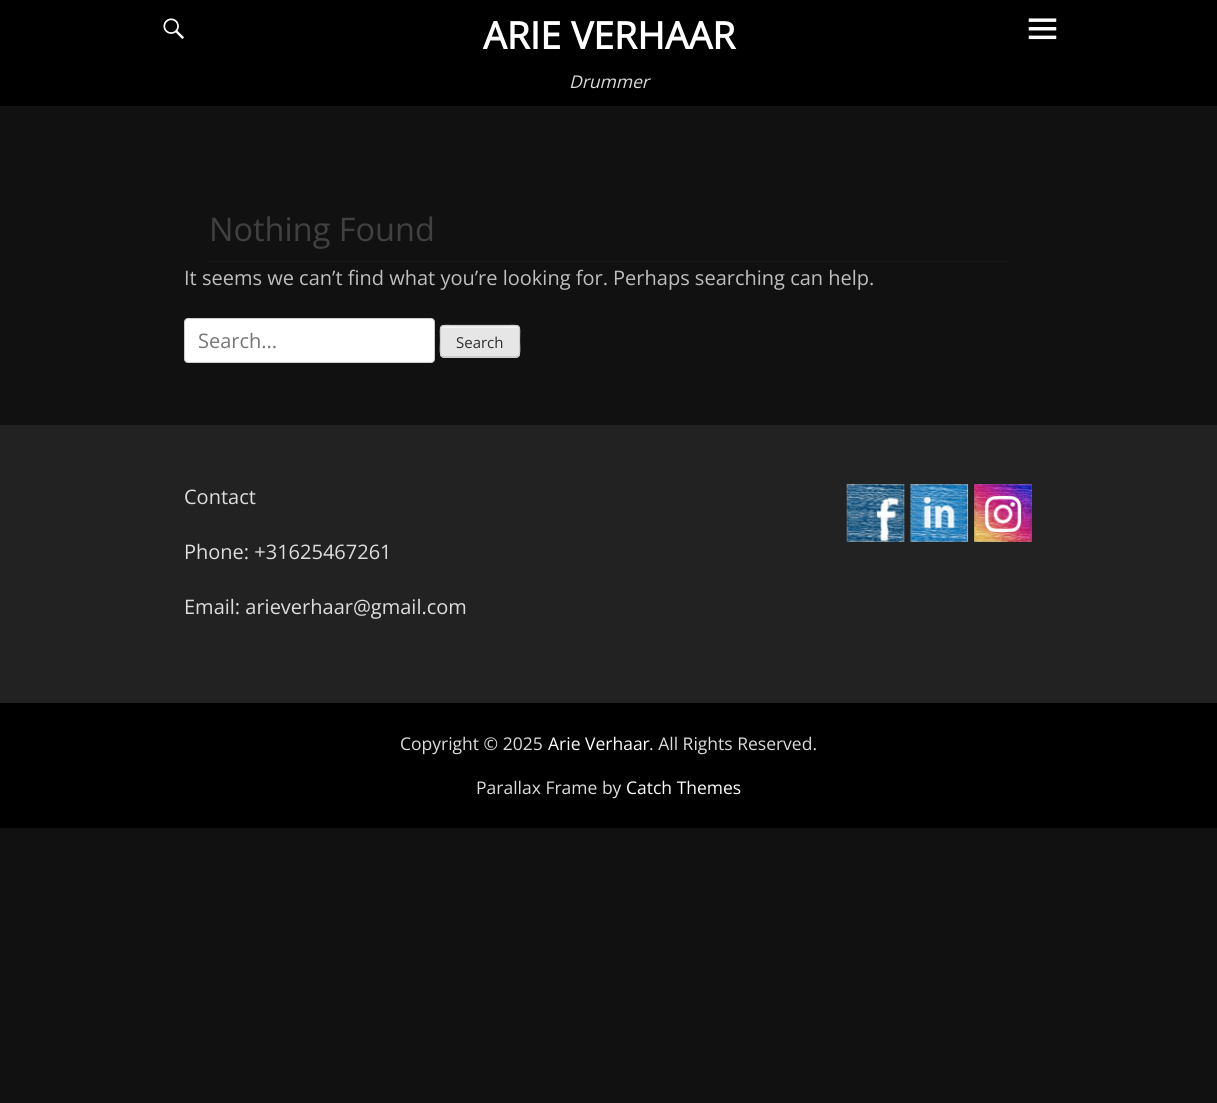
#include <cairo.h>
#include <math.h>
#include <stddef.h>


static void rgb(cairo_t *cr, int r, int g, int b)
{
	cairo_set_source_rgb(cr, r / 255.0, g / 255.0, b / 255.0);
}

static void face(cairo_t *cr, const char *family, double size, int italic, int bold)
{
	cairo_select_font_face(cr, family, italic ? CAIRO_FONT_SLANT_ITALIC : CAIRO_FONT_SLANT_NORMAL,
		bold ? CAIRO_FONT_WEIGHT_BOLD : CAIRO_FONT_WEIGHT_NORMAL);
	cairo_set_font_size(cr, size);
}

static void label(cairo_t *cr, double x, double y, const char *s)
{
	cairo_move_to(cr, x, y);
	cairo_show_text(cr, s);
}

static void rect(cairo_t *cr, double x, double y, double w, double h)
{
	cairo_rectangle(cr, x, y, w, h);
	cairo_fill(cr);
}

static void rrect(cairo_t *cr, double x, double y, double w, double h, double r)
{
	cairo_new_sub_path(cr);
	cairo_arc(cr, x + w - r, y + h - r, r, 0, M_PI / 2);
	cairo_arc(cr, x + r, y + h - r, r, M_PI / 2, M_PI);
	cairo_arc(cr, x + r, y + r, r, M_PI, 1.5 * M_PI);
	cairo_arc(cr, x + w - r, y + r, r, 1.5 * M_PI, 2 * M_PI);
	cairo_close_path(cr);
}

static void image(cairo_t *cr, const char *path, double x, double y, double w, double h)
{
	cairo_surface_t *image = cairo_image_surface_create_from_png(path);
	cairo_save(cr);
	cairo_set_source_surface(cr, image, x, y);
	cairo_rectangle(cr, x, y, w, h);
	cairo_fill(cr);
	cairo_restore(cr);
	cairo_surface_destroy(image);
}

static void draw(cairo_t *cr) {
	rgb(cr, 17, 17, 17);
	cairo_paint(cr);
	rgb(cr, 0, 0, 0);
	rect(cr, 0, 0, 1217, 106);
	image(cr, "image0.png", 163, 18, 21, 21);
	image(cr, "image1.png", 1028, 18, 29, 22);
	face(cr, "Open Sans", 37.5, 0, 1);
	rgb(cr, 255, 255, 255);
	label(cr, 483, 49, "ARIE VERHAAR");
	face(cr, "Open Sans", 17.5, 1, 0);
	rgb(cr, 221, 221, 221);
	label(cr, 569, 88, "Drummer");
	rgb(cr, 25, 25, 25);
	rect(cr, 209, 261, 800, 1);
	face(cr, "Open Sans", 32.5, 0, 0);
	rgb(cr, 64, 64, 64);
	label(cr, 209, 241, "Nothing Found");
	face(cr, "Open Sans", 20, 0, 0);
	rgb(cr, 190, 190, 190);
	label(cr, 184, 285, "It seems we can’t find what you’re looking for. Perhaps searching can help.");
	rgb(cr, 255, 255, 255);
	rrect(cr, 184.5, 318.5, 250, 44, 3.5);
	cairo_fill_preserve(cr);
	rgb(cr, 204, 204, 204);
	cairo_set_line_width(cr, 1);
	cairo_stroke(cr);
	rgb(cr, 117, 117, 117);
	label(cr, 198, 348, "Search...");
	rgb(cr, 230, 230, 230);
	rrect(cr, 440, 325, 80, 33, 4);
	cairo_fill(cr);
	rgb(cr, 243, 243, 243);
	cairo_new_path(cr);
	cairo_move_to(cr, 444, 328);
	cairo_line_to(cr, 516, 328);
	cairo_curve_to(cr, 518, 328, 519, 329, 519, 330);
	cairo_curve_to(cr, 519, 323, 510, 326, 504, 326);
	cairo_line_to(cr, 456, 326);
	cairo_curve_to(cr, 450, 326, 441, 323, 441, 330);
	cairo_curve_to(cr, 441, 329, 442, 328, 444, 328);
	cairo_close_path(cr);
	cairo_fill(cr);
	cairo_new_path(cr);
	cairo_move_to(cr, 518.5, 356);
	cairo_line_to(cr, 516.5, 357);
	cairo_line_to(cr, 443.5, 357);
	cairo_line_to(cr, 441.5, 356);
	rgb(cr, 187, 187, 187);
	cairo_set_line_width(cr, 1.2);
	cairo_stroke(cr);
	cairo_new_path(cr);
	cairo_move_to(cr, 441.5, 356);
	cairo_curve_to(cr, 439.5, 354, 440.5, 344, 440.5, 341);
	cairo_curve_to(cr, 440.5, 323, 437.5, 325.5, 456, 325.5);
	cairo_line_to(cr, 504, 325.5);
	cairo_curve_to(cr, 522.5, 325.5, 519.5, 323, 519.5, 341);
	cairo_curve_to(cr, 519.5, 344, 520.5, 354, 518.5, 356);
	rgb(cr, 204, 204, 204);
	cairo_stroke(cr);
	face(cr, "Open Sans", 15, 0, 0);
	rgb(cr, 46, 46, 46);
	label(cr, 456, 348, "Search");
	rgb(cr, 34, 34, 34);
	rect(cr, 0, 425, 1217, 278);
	face(cr, "Open Sans", 20, 0, 0);
	rgb(cr, 221, 221, 221);
	label(cr, 184, 504, "Contact");
	label(cr, 184, 559, "Phone: +31625467261");
	label(cr, 184, 614, "Email: arieverhaar@gmail.com");
	image(cr, "image2.png", 846, 484, 59, 58);
	image(cr, "image3.png", 910, 484, 59, 58);
	image(cr, "image4.png", 974, 484, 58, 58);
	rgb(cr, 0, 0, 0);
	rect(cr, 0, 703, 1217, 125);
	face(cr, "Open Sans", 17.5, 0, 0);
	rgb(cr, 221, 221, 221);
	label(cr, 400, 750, "Copyright © 2025");
	rgb(cr, 255, 255, 255);
	label(cr, 548, 750, "Arie Verhaar");
	rgb(cr, 221, 221, 221);
	label(cr, 649, 750, ". All Rights Reserved.");
	label(cr, 476, 794, "Parallax Frame by");
	rgb(cr, 255, 255, 255);
	label(cr, 626, 794, "Catch Themes");
}

int main(void) {
	cairo_surface_t *surface = cairo_image_surface_create(CAIRO_FORMAT_RGB24, 1217, 1103);
	cairo_t *cr = cairo_create(surface);
	cairo_font_options_t *options = cairo_font_options_create();
	cairo_font_options_set_hint_metrics(options, CAIRO_HINT_METRICS_OFF);
	cairo_font_options_set_hint_style(options, CAIRO_HINT_STYLE_NONE);
	cairo_set_font_options(cr, options);
	cairo_set_miter_limit(cr, 4);
	draw(cr);
	cairo_surface_write_to_png(surface, "render.png");
	cairo_font_options_destroy(options);
	cairo_destroy(cr);
	cairo_surface_destroy(surface);
	return 0;
}
